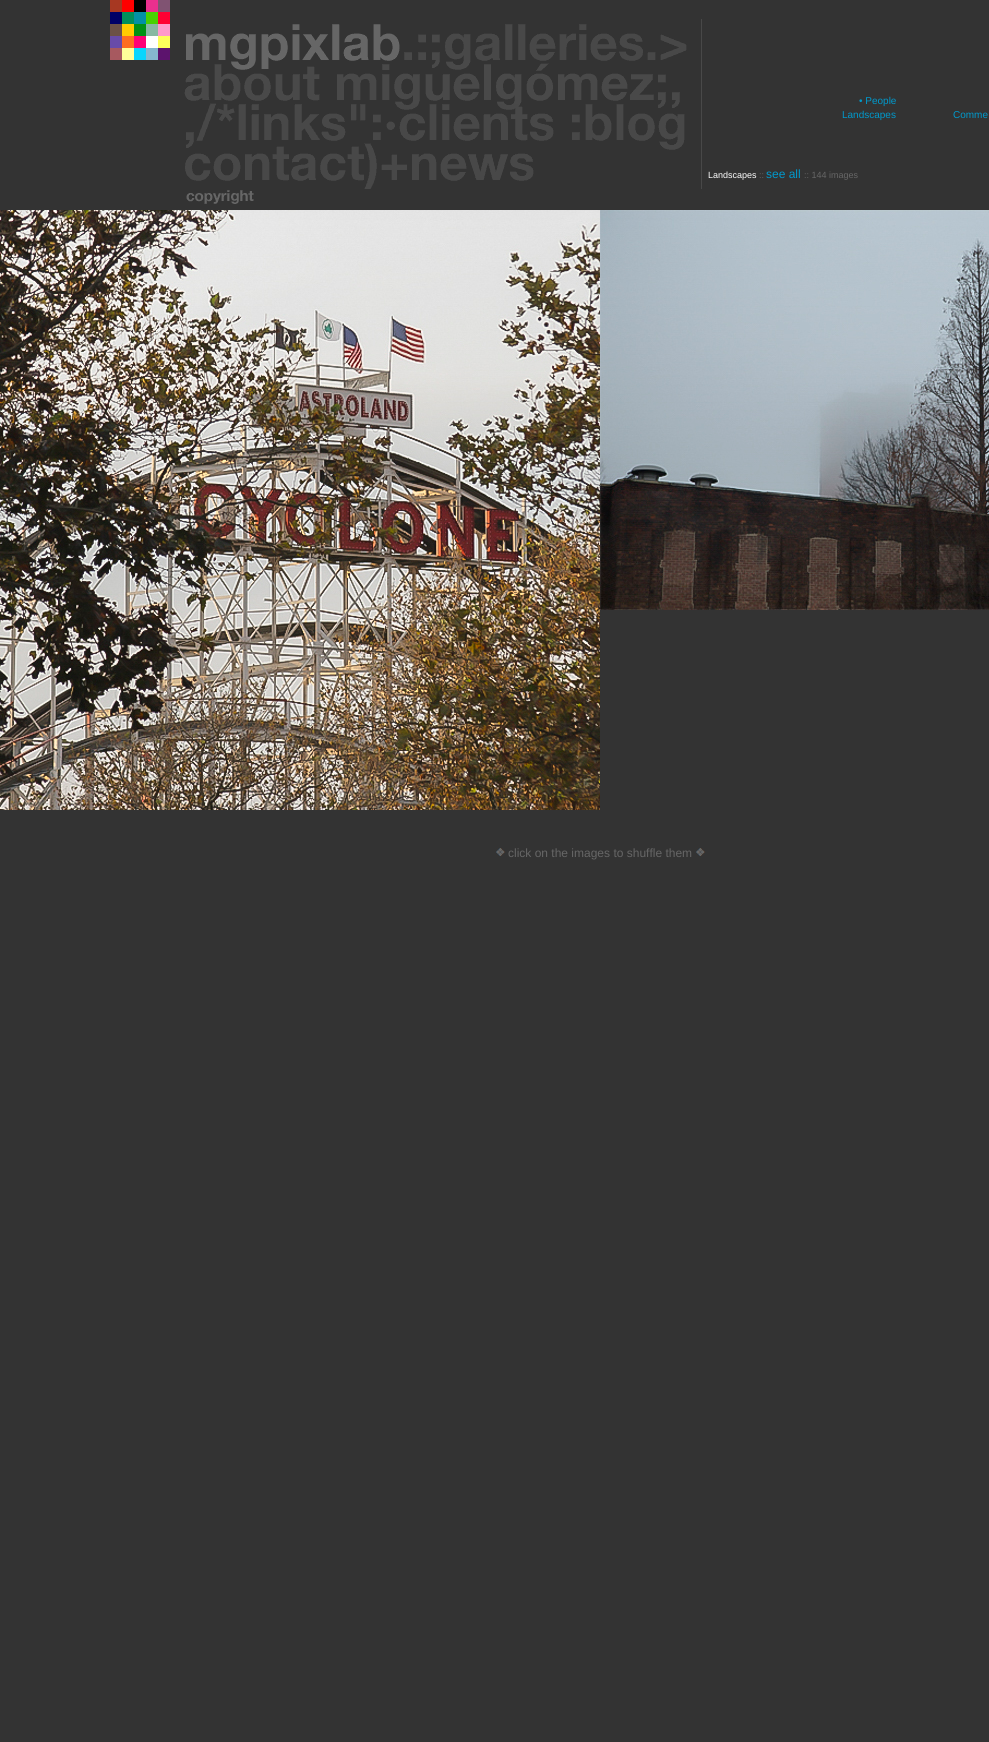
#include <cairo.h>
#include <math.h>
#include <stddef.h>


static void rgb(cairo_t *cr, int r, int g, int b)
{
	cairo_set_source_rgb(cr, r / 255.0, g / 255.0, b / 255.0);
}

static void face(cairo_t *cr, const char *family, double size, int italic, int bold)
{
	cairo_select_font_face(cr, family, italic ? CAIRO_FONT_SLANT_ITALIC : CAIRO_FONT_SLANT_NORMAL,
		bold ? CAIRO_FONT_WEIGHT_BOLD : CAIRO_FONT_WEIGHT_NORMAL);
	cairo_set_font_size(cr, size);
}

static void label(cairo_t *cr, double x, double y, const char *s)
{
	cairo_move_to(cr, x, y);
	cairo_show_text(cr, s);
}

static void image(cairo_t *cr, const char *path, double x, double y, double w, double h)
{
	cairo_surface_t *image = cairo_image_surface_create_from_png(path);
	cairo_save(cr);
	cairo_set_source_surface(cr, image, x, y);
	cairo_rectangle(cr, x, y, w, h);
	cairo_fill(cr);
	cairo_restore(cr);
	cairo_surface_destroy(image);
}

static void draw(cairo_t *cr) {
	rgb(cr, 51, 51, 51);
	cairo_paint(cr);
	image(cr, "image0.png", 110, 0, 60, 60);
	image(cr, "image1.png", 186, 24, 254, 36);
	image(cr, "image2.png", 445, 19, 257, 41);
	image(cr, "image3.png", 184, 60, 518, 44);
	image(cr, "image4.png", 186, 104, 185, 40);
	image(cr, "image5.png", 373, 104, 181, 37);
	image(cr, "image6.png", 572, 104, 130, 40);
	image(cr, "image7.png", 185, 144, 222, 45);
	image(cr, "image8.png", 412, 144, 290, 45);
	image(cr, "image9.png", 186, 190, 68, 14);
	face(cr, "Liberation Sans", 10, 0, 0);
	rgb(cr, 0, 153, 204);
	label(cr, 859, 104, "• People");
	label(cr, 842, 118, "Landscapes");
	label(cr, 953, 118, "Comme");
	face(cr, "Liberation Sans", 9, 0, 0);
	rgb(cr, 255, 255, 255);
	label(cr, 708, 178, "Landscapes");
	rgb(cr, 102, 102, 102);
	label(cr, 759, 178, "::");
	face(cr, "Liberation Sans", 12, 0, 0);
	rgb(cr, 0, 153, 204);
	label(cr, 766, 178, "see all");
	face(cr, "Liberation Sans", 9, 0, 0);
	rgb(cr, 102, 102, 102);
	label(cr, 804, 178, ":: 144 images");
	image(cr, "image10.png", 0, 210, 600, 600);
	image(cr, "image11.png", 600, 210, 389, 400);
	image(cr, "image12.png", 496, 848, 9, 8);
	face(cr, "Liberation Sans", 12, 0, 0);
	label(cr, 508, 857, "click on the images to shuffle them");
	image(cr, "image12.png", 696, 848, 9, 8);
}

int main(void) {
	cairo_surface_t *surface = cairo_image_surface_create(CAIRO_FORMAT_RGB24, 989, 1742);
	cairo_t *cr = cairo_create(surface);
	cairo_font_options_t *options = cairo_font_options_create();
	cairo_font_options_set_hint_metrics(options, CAIRO_HINT_METRICS_OFF);
	cairo_font_options_set_hint_style(options, CAIRO_HINT_STYLE_NONE);
	cairo_set_font_options(cr, options);
	cairo_set_miter_limit(cr, 4);
	draw(cr);
	cairo_surface_write_to_png(surface, "render.png");
	cairo_font_options_destroy(options);
	cairo_destroy(cr);
	cairo_surface_destroy(surface);
	return 0;
}
